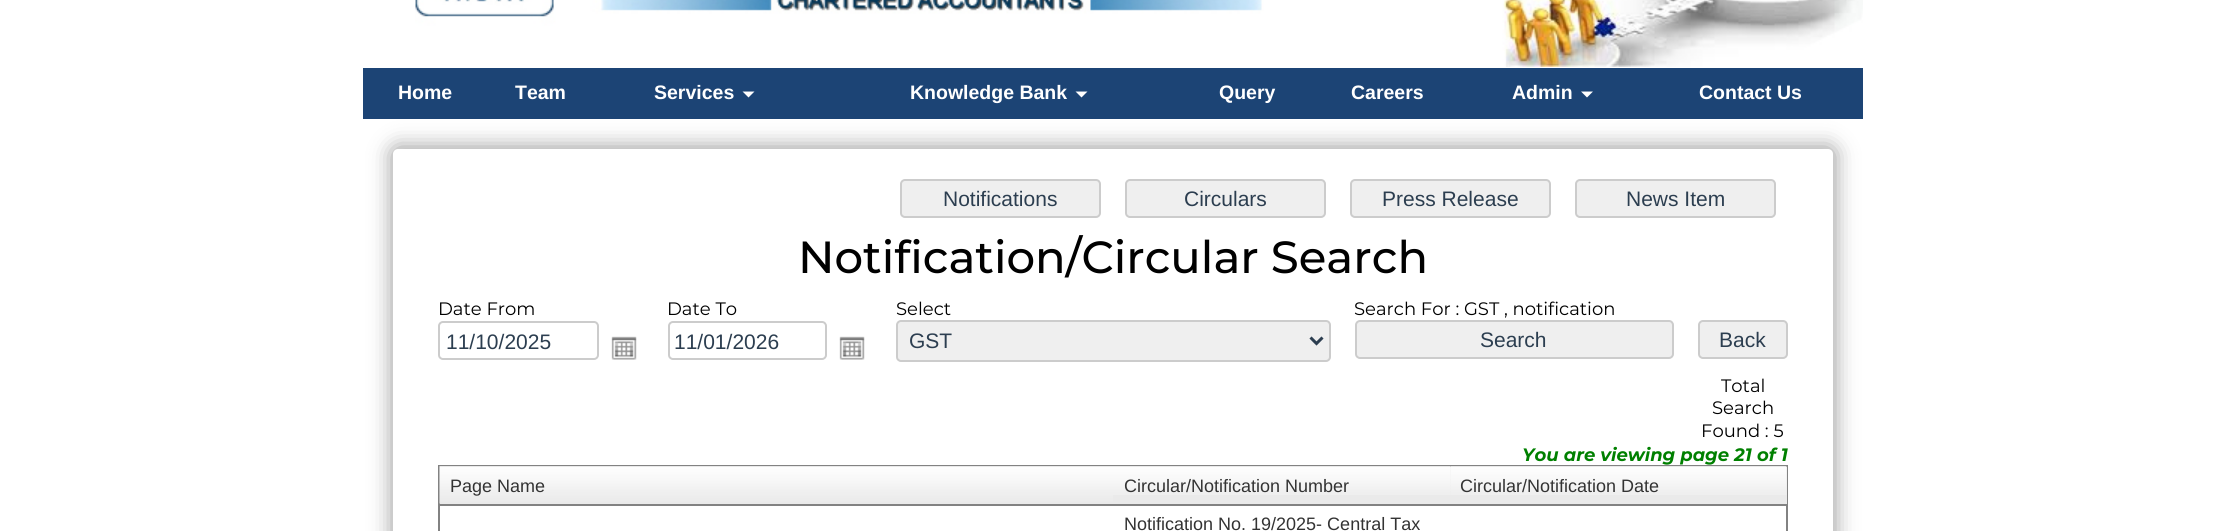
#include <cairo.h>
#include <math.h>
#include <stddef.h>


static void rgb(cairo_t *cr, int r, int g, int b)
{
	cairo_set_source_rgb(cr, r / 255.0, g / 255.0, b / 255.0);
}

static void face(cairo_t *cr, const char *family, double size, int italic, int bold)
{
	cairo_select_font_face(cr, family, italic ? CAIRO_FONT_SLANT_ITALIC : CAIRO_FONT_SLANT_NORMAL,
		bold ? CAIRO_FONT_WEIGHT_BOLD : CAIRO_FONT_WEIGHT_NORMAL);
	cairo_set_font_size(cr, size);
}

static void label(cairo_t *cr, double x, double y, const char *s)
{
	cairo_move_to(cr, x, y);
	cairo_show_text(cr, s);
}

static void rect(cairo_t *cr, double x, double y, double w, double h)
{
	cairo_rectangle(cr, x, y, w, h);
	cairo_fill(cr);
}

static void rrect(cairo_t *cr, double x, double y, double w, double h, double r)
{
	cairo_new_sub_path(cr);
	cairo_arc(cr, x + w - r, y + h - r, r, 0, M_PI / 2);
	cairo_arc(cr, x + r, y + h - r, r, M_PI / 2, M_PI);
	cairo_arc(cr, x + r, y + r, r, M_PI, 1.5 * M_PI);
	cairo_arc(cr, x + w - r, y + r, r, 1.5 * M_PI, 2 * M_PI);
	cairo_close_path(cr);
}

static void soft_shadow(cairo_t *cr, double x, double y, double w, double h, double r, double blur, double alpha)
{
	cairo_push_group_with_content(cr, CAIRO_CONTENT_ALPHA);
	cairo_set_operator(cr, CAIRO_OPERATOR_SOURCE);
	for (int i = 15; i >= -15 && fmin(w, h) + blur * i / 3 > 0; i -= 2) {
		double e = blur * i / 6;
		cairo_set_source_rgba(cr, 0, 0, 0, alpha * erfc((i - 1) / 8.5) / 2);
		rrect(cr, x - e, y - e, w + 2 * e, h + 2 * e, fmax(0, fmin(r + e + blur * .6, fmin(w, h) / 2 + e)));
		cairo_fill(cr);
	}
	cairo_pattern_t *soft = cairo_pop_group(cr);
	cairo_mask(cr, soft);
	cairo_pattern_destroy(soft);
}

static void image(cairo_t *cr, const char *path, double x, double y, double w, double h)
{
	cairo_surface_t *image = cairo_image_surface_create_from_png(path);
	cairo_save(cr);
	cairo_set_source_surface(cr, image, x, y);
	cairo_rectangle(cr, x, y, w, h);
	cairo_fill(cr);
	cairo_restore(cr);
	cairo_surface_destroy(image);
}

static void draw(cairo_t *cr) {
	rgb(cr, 255, 255, 255);
	cairo_paint(cr);
	image(cr, "image0.png", 415, 0, 1448, 67);
	rgb(cr, 0, 0, 0);
	soft_shadow(cr, 392, 147, 1443, 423, 6, 11, 0.4);
	rgb(cr, 28, 68, 117);
	rect(cr, 363, 68, 1500, 51);
	face(cr, "Liberation Sans", 19.5, 0, 1);
	rgb(cr, 255, 255, 255);
	label(cr, 398, 99, "Home");
	label(cr, 515, 99, "Team");
	label(cr, 654, 99, "Services");
	cairo_new_path(cr);
	cairo_move_to(cr, 742.5, 91.5);
	cairo_line_to(cr, 754.5, 91.5);
	cairo_line_to(cr, 748.5, 97.5);
	cairo_close_path(cr);
	cairo_fill(cr);
	label(cr, 910, 99, "Knowledge Bank");
	cairo_new_path(cr);
	cairo_move_to(cr, 1075.5, 91.5);
	cairo_line_to(cr, 1087.5, 91.5);
	cairo_line_to(cr, 1081.5, 97.5);
	cairo_close_path(cr);
	cairo_fill(cr);
	label(cr, 1219, 99, "Query");
	label(cr, 1351, 99, "Careers");
	label(cr, 1512, 99, "Admin");
	cairo_new_path(cr);
	cairo_move_to(cr, 1581, 91.5);
	cairo_line_to(cr, 1593, 91.5);
	cairo_line_to(cr, 1587, 97.5);
	cairo_close_path(cr);
	cairo_fill(cr);
	label(cr, 1699, 99, "Contact Us");
	rrect(cr, 393, 149, 1440, 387, 5);
	cairo_fill(cr);
	rgb(cr, 239, 239, 239);
	rrect(cr, 901, 180, 199, 37, 4);
	cairo_fill_preserve(cr);
	rgb(cr, 204, 204, 204);
	cairo_stroke(cr);
	face(cr, "Liberation Sans", 21, 0, 0);
	rgb(cr, 44, 62, 80);
	label(cr, 943, 206, "Notifications");
	rgb(cr, 239, 239, 239);
	rrect(cr, 1126, 180, 199, 37, 4);
	cairo_fill_preserve(cr);
	rgb(cr, 204, 204, 204);
	cairo_stroke(cr);
	rgb(cr, 44, 62, 80);
	label(cr, 1184, 206, "Circulars");
	rgb(cr, 239, 239, 239);
	rrect(cr, 1351, 180, 199, 37, 4);
	cairo_fill_preserve(cr);
	rgb(cr, 204, 204, 204);
	cairo_stroke(cr);
	rgb(cr, 44, 62, 80);
	label(cr, 1382, 206, "Press Release");
	rgb(cr, 239, 239, 239);
	rrect(cr, 1576, 180, 199, 37, 4);
	cairo_fill_preserve(cr);
	rgb(cr, 204, 204, 204);
	cairo_stroke(cr);
	rgb(cr, 44, 62, 80);
	label(cr, 1626, 206, "News Item");
	face(cr, "Montserrat Medium", 45, 0, 0);
	rgb(cr, 0, 0, 0);
	label(cr, 798, 273, "Notification/Circular Search");
	face(cr, "Montserrat", 18, 0, 0);
	label(cr, 438, 315, "Date From");
	rrect(cr, 439, 322, 159, 37, 4);
	rgb(cr, 204, 204, 204);
	cairo_stroke(cr);
	face(cr, "Liberation Sans", 21, 0, 0);
	rgb(cr, 44, 62, 80);
	label(cr, 446, 349, "11/10/2025");
	image(cr, "image1.png", 611, 336, 26, 24);
	face(cr, "Montserrat", 18, 0, 0);
	rgb(cr, 0, 0, 0);
	label(cr, 667, 315, "Date To");
	rrect(cr, 669, 322, 157, 37, 4);
	rgb(cr, 204, 204, 204);
	cairo_stroke(cr);
	face(cr, "Liberation Sans", 21, 0, 0);
	rgb(cr, 44, 62, 80);
	label(cr, 674, 349, "11/01/2026");
	image(cr, "image1.png", 839, 336, 26, 24);
	face(cr, "Montserrat", 18, 0, 0);
	rgb(cr, 0, 0, 0);
	label(cr, 896, 315, "Select");
	rgb(cr, 239, 239, 239);
	rrect(cr, 897, 321, 433, 40, 4);
	cairo_fill_preserve(cr);
	rgb(cr, 204, 204, 204);
	cairo_stroke(cr);
	cairo_new_path(cr);
	cairo_move_to(cr, 1310.5, 337.5);
	cairo_line_to(cr, 1316.5, 343.5);
	cairo_line_to(cr, 1322.5, 337.5);
	rgb(cr, 44, 62, 80);
	cairo_set_line_width(cr, 3);
	cairo_stroke(cr);
	face(cr, "Liberation Sans", 21, 0, 0);
	label(cr, 909, 348, "GST");
	face(cr, "Montserrat", 18, 0, 0);
	rgb(cr, 0, 0, 0);
	label(cr, 1354, 315, "Search For : GST , notification");
	rgb(cr, 239, 239, 239);
	rrect(cr, 1356, 321, 317, 37, 4);
	cairo_fill_preserve(cr);
	rgb(cr, 204, 204, 204);
	cairo_set_line_width(cr, 2);
	cairo_stroke(cr);
	face(cr, "Liberation Sans", 21, 0, 0);
	rgb(cr, 44, 62, 80);
	label(cr, 1480, 347, "Search");
	rgb(cr, 239, 239, 239);
	rrect(cr, 1699, 321, 88, 37, 4);
	cairo_fill_preserve(cr);
	rgb(cr, 204, 204, 204);
	cairo_stroke(cr);
	rgb(cr, 44, 62, 80);
	label(cr, 1719, 347, "Back");
	face(cr, "Montserrat", 18, 0, 0);
	rgb(cr, 0, 0, 0);
	label(cr, 1721, 392, "Total");
	label(cr, 1712, 414, "Search");
	label(cr, 1701, 437, "Found : 5");
	face(cr, "Montserrat", 18, 1, 1);
	rgb(cr, 0, 128, 0);
	label(cr, 1522, 461, "You are viewing page 21 of 1");
	cairo_rectangle(cr, 439, 466, 1348, 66);
	rgb(cr, 130, 130, 130);
	cairo_stroke(cr);
	rgb(cr, 234, 234, 234);
	rect(cr, 440, 503, 673, 1);
	image(cr, "image2.png", 439, 466, 674, 38);
	rgb(cr, 130, 130, 130);
	rect(cr, 440, 504, 1347, 2);
	face(cr, "Liberation Sans", 18, 0, 0);
	rgb(cr, 51, 51, 51);
	label(cr, 450, 492, "Page Name");
	rgb(cr, 234, 234, 234);
	rect(cr, 1113, 467, 674, 37);
	image(cr, "image3.png", 1113, 466, 338, 29);
	rgb(cr, 51, 51, 51);
	label(cr, 1124, 492, "Circular/Notification Number");
	image(cr, "image4.png", 1450, 466, 337, 29);
	label(cr, 1460, 492, "Circular/Notification Date");
	label(cr, 1124, 530, "Notification No. 19/2025- Central Tax");
}

int main(void) {
	cairo_surface_t *surface = cairo_image_surface_create(CAIRO_FORMAT_RGB24, 2225, 531);
	cairo_t *cr = cairo_create(surface);
	cairo_font_options_t *options = cairo_font_options_create();
	cairo_font_options_set_hint_metrics(options, CAIRO_HINT_METRICS_OFF);
	cairo_font_options_set_hint_style(options, CAIRO_HINT_STYLE_NONE);
	cairo_set_font_options(cr, options);
	cairo_set_miter_limit(cr, 4);
	draw(cr);
	cairo_surface_write_to_png(surface, "render.png");
	cairo_font_options_destroy(options);
	cairo_destroy(cr);
	cairo_surface_destroy(surface);
	return 0;
}
